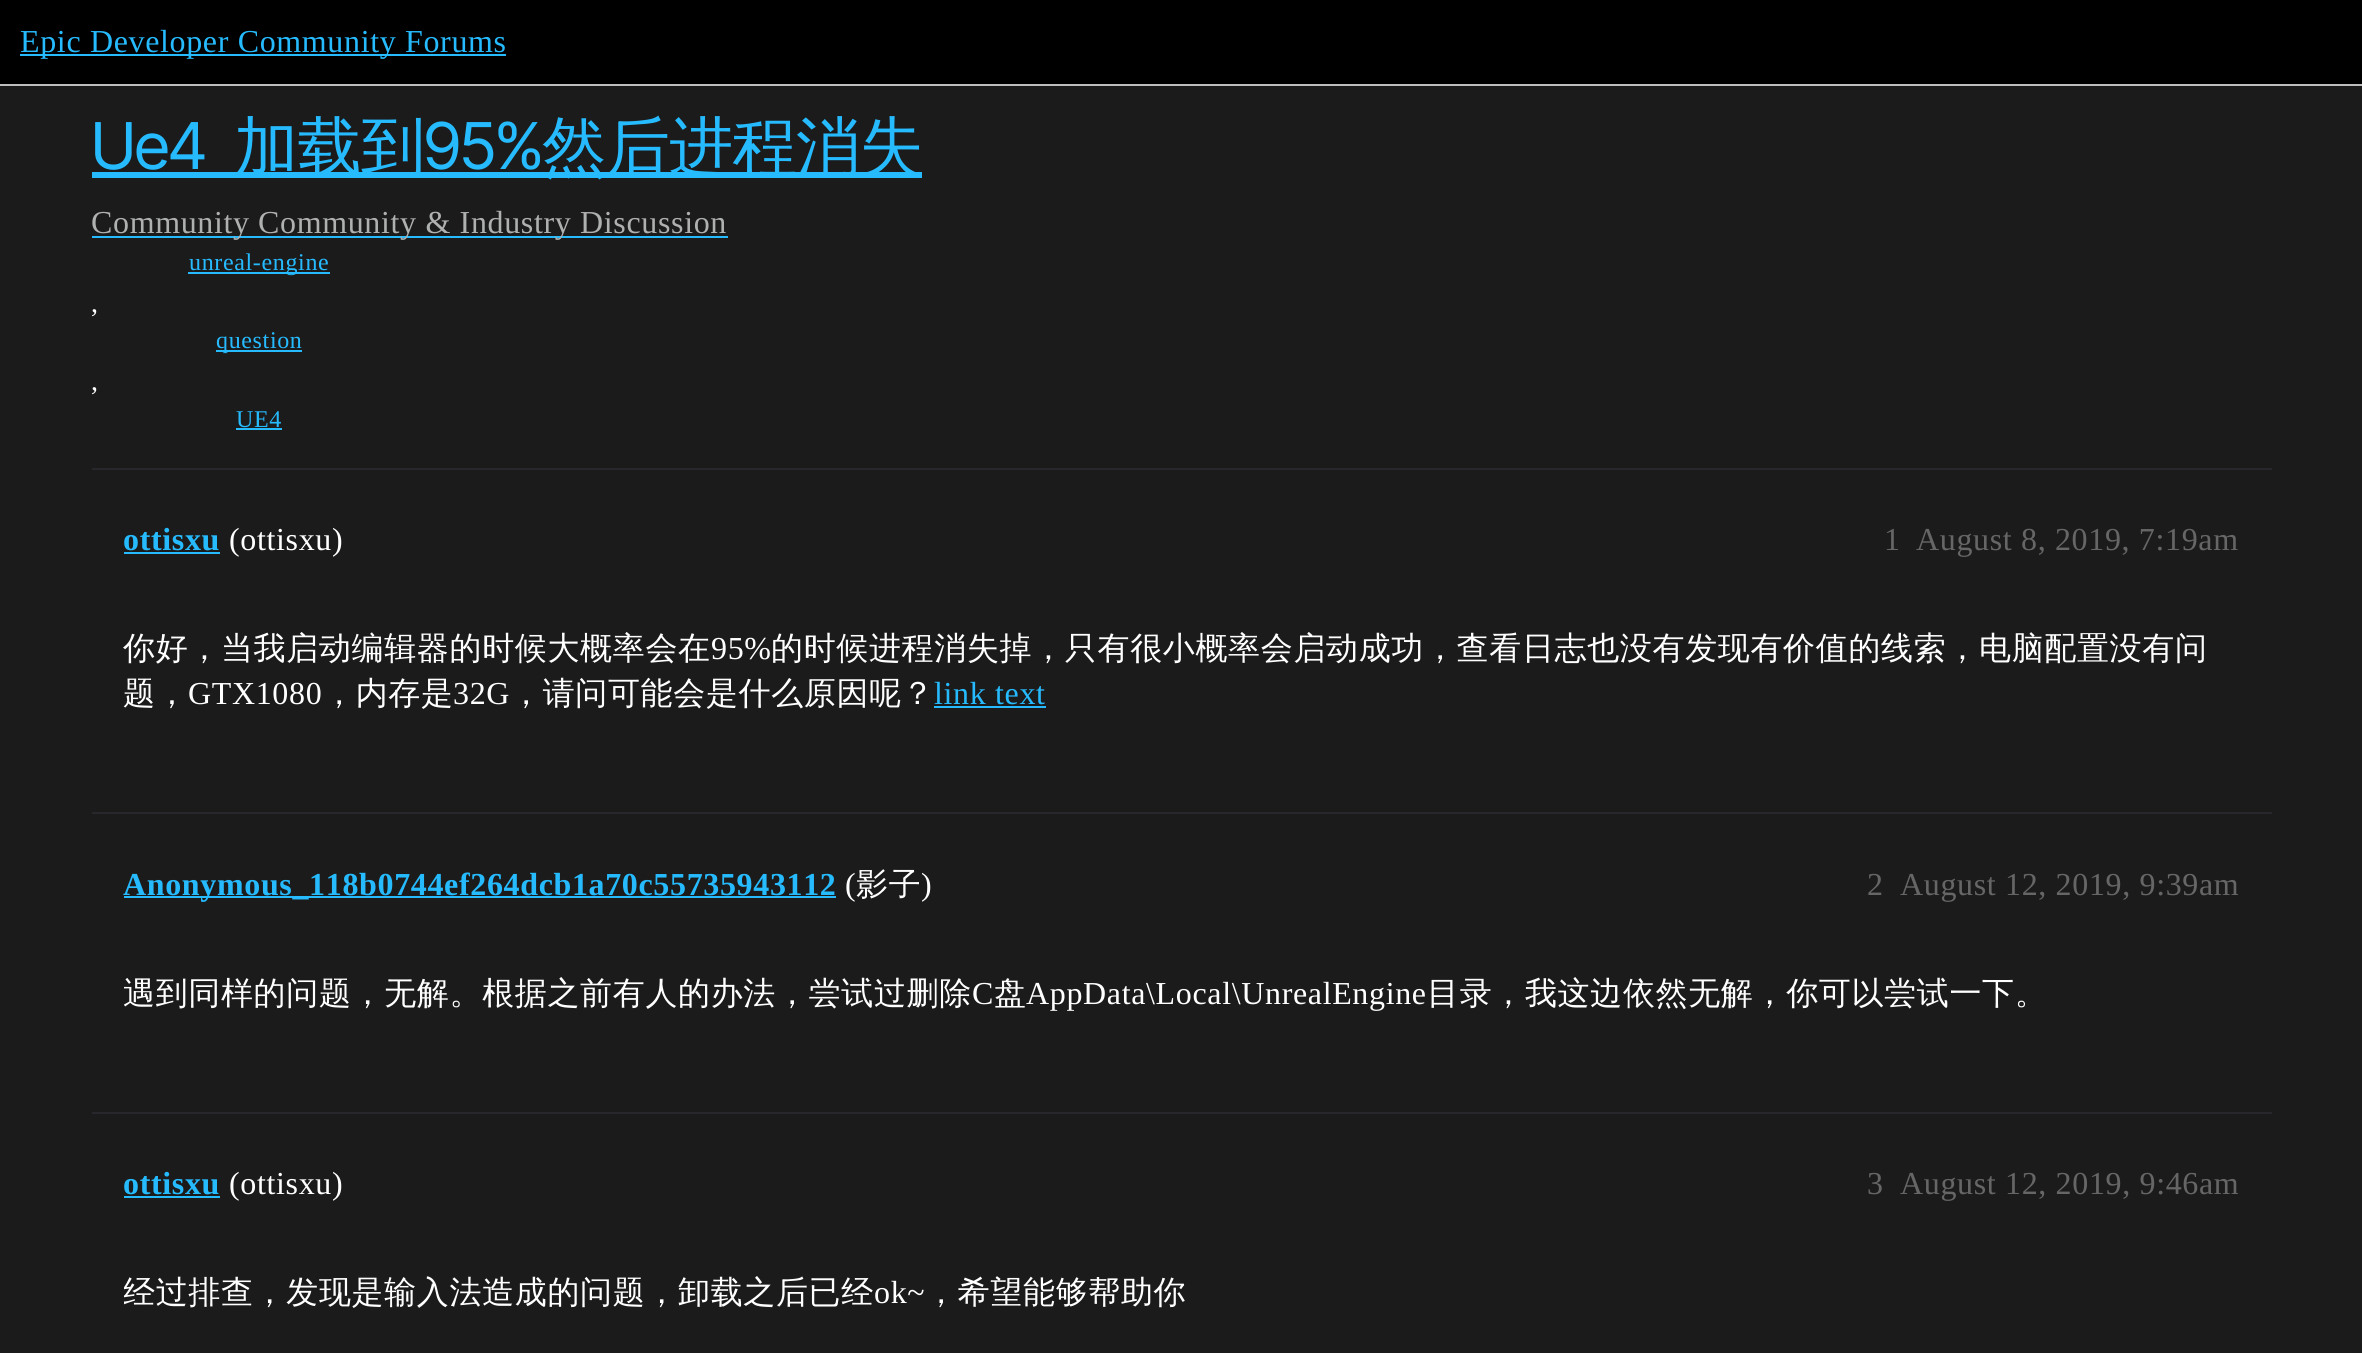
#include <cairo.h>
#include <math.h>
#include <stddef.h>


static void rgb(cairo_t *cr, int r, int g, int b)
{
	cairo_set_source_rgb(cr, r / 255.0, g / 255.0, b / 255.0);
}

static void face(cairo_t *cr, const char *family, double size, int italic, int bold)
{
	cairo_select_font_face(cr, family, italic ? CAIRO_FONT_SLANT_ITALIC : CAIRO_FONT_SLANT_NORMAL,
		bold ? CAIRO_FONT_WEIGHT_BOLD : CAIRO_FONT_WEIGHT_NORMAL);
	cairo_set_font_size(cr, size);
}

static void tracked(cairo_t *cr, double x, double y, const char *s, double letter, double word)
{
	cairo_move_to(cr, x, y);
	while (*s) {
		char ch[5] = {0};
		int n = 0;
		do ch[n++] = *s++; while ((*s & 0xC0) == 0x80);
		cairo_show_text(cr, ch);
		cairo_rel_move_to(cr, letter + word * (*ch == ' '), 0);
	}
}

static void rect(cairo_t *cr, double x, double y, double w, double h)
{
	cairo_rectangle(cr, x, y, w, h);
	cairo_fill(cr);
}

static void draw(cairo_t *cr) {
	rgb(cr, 27, 27, 27);
	cairo_paint(cr);
	rgb(cr, 0, 0, 0);
	rect(cr, 0, 0, 2362, 84);
	rgb(cr, 189, 189, 189);
	rect(cr, 0, 84, 2362, 2);
	rgb(cr, 38, 187, 255);
	rect(cr, 20, 54, 486, 2);
	face(cr, "Liberation Serif", 32, 0, 0);
	tracked(cr, 20, 52, "Epic Developer Community Forums", 0.65, 0);
	face(cr, "Inter Tight", 64.5, 0, 0);
	tracked(cr, 91, 169, "Ue4", -1, 0);
	rect(cr, 92, 172, 830, 6);
	face(cr, "WenQuanYi Zen Hei Medium", 64.5, 0, 0);
	tracked(cr, 234, 169, "加载到", -1, 0);
	face(cr, "Inter Tight", 64.5, 0, 0);
	tracked(cr, 424, 169, "95%", -1, 0);
	face(cr, "WenQuanYi Zen Hei Medium", 64.5, 0, 0);
	tracked(cr, 542, 169, "然后进程消失", -1, 0);
	rect(cr, 92, 236, 636, 2);
	face(cr, "Liberation Serif", 32, 0, 0);
	rgb(cr, 175, 176, 176);
	tracked(cr, 91, 233, "Community", 0.65, 0);
	tracked(cr, 258, 233, "Community & Industry Discussion", 0.65, 0);
	rgb(cr, 38, 187, 255);
	rect(cr, 188, 272, 142, 2);
	face(cr, "Liberation Serif", 24, 0, 0);
	tracked(cr, 189, 270, "unreal-engine", 0.65, 0);
	face(cr, "Liberation Serif", 28, 0, 0);
	rgb(cr, 255, 255, 255);
	tracked(cr, 91, 312, ",", 0.65, 0);
	rgb(cr, 38, 187, 255);
	rect(cr, 216, 350, 86, 2);
	face(cr, "Liberation Serif", 24, 0, 0);
	tracked(cr, 216, 348, "question", 0.65, 0);
	face(cr, "Liberation Serif", 28, 0, 0);
	rgb(cr, 255, 255, 255);
	tracked(cr, 91, 390, ",", 0.65, 0);
	face(cr, "Liberation Serif", 24, 0, 0);
	rgb(cr, 38, 187, 255);
	tracked(cr, 236, 427, "UE4", 0.65, 0);
	rect(cr, 236, 428, 46, 2);
	rgb(cr, 40, 40, 44);
	rect(cr, 92, 468, 2180, 2);
	face(cr, "Liberation Serif", 32, 0, 1);
	rgb(cr, 38, 187, 255);
	tracked(cr, 123, 550, "ottisxu", 0.65, 0);
	rect(cr, 124, 552, 96, 2);
	face(cr, "Liberation Serif", 32, 0, 0);
	rgb(cr, 255, 255, 255);
	tracked(cr, 229, 550, "(ottisxu)", 0.65, 0);
	rgb(cr, 102, 102, 102);
	tracked(cr, 1884, 550, "1", 0.65, 0);
	tracked(cr, 1916, 550, "August 8, 2019, 7:19am", 0.65, 0);
	face(cr, "WenQuanYi Zen Hei Medium", 32, 0, 0);
	rgb(cr, 255, 255, 255);
	tracked(cr, 123, 659, "你好，当我启动编辑器的时候大概率会在", 0.65, 0);
	face(cr, "Liberation Serif", 32, 0, 0);
	tracked(cr, 711, 659, "95%", 0.65, 0);
	face(cr, "WenQuanYi Zen Hei Medium", 32, 0, 0);
	tracked(cr, 771, 659, "的时候进程消失掉，只有很小概率会启动成功，查看日志也没有发现有价值的线索，电脑配置没有问", 0.65, 0);
	tracked(cr, 123, 704, "题，", 0.65, 0);
	face(cr, "Liberation Serif", 32, 0, 0);
	tracked(cr, 188, 704, "GTX1080", 0.65, 0);
	face(cr, "WenQuanYi Zen Hei Medium", 32, 0, 0);
	tracked(cr, 323, 704, "，内存是", 0.65, 0);
	face(cr, "Liberation Serif", 32, 0, 0);
	tracked(cr, 453, 704, "32G", 0.65, 0);
	face(cr, "WenQuanYi Zen Hei Medium", 32, 0, 0);
	tracked(cr, 510, 704, "，请问可能会是什么原因呢？", 0.65, 0);
	face(cr, "Liberation Serif", 32, 0, 0);
	rgb(cr, 38, 187, 255);
	tracked(cr, 934, 704, "link text", 0.65, 0);
	rect(cr, 934, 706, 112, 2);
	rgb(cr, 40, 40, 44);
	rect(cr, 92, 812, 2180, 2);
	rgb(cr, 38, 187, 255);
	rect(cr, 124, 896, 712, 2);
	face(cr, "Liberation Serif", 32, 0, 1);
	tracked(cr, 123, 895, "Anonymous_118b0744ef264dcb1a70c55735943112", 0.65, 0);
	face(cr, "Liberation Serif", 32, 0, 0);
	rgb(cr, 255, 255, 255);
	tracked(cr, 845, 895, "(", 0.65, 0);
	face(cr, "WenQuanYi Zen Hei Medium", 32, 0, 0);
	tracked(cr, 856, 895, "影子", 0.65, 0);
	face(cr, "Liberation Serif", 32, 0, 0);
	tracked(cr, 921, 895, ")", 0.65, 0);
	rgb(cr, 102, 102, 102);
	tracked(cr, 1867, 895, "2", 0.65, 0);
	tracked(cr, 1900, 895, "August 12, 2019, 9:39am", 0.65, 0);
	face(cr, "WenQuanYi Zen Hei Medium", 32, 0, 0);
	rgb(cr, 255, 255, 255);
	tracked(cr, 123, 1004, "遇到同样的问题，无解。根据之前有人的办法，尝试过删除", 0.65, 0);
	face(cr, "Liberation Serif", 32, 0, 0);
	tracked(cr, 972, 1004, "C", 0.65, 0);
	face(cr, "WenQuanYi Zen Hei Medium", 32, 0, 0);
	tracked(cr, 994, 1004, "盘", 0.65, 0);
	face(cr, "Liberation Serif", 32, 0, 0);
	tracked(cr, 1026, 1004, "AppData\\Local\\UnrealEngine", 0.65, 0);
	face(cr, "WenQuanYi Zen Hei Medium", 32, 0, 0);
	tracked(cr, 1427, 1004, "目录，我这边依然无解，你可以尝试一下。", 0.65, 0);
	rgb(cr, 40, 40, 44);
	rect(cr, 92, 1112, 2180, 2);
	face(cr, "Liberation Serif", 32, 0, 1);
	rgb(cr, 38, 187, 255);
	tracked(cr, 123, 1194, "ottisxu", 0.65, 0);
	rect(cr, 124, 1196, 96, 2);
	face(cr, "Liberation Serif", 32, 0, 0);
	rgb(cr, 255, 255, 255);
	tracked(cr, 229, 1194, "(ottisxu)", 0.65, 0);
	rgb(cr, 102, 102, 102);
	tracked(cr, 1867, 1194, "3", 0.65, 0);
	tracked(cr, 1900, 1194, "August 12, 2019, 9:46am", 0.65, 0);
	cairo_save(cr);
	cairo_rectangle(cr, 124, 1240, 2116, 108);
	cairo_clip(cr);
	face(cr, "WenQuanYi Zen Hei Medium", 32, 0, 0);
	rgb(cr, 255, 255, 255);
	tracked(cr, 123, 1303, "经过排查，发现是输入法造成的问题，卸载之后已经", 0.65, 0);
	cairo_restore(cr);
	rgb(cr, 255, 255, 255);
	tracked(cr, 874, 1303, "ok~", 0.65, 0);
	face(cr, "WenQuanYi Zen Hei Medium", 32, 0, 0);
	tracked(cr, 925, 1303, "，希望能够帮助你", 0.65, 0);
}

int main(void) {
	cairo_surface_t *surface = cairo_image_surface_create(CAIRO_FORMAT_RGB24, 2362, 1353);
	cairo_t *cr = cairo_create(surface);
	cairo_font_options_t *options = cairo_font_options_create();
	cairo_font_options_set_hint_metrics(options, CAIRO_HINT_METRICS_OFF);
	cairo_font_options_set_hint_style(options, CAIRO_HINT_STYLE_NONE);
	cairo_set_font_options(cr, options);
	cairo_set_miter_limit(cr, 4);
	draw(cr);
	cairo_surface_write_to_png(surface, "render.png");
	cairo_font_options_destroy(options);
	cairo_destroy(cr);
	cairo_surface_destroy(surface);
	return 0;
}
